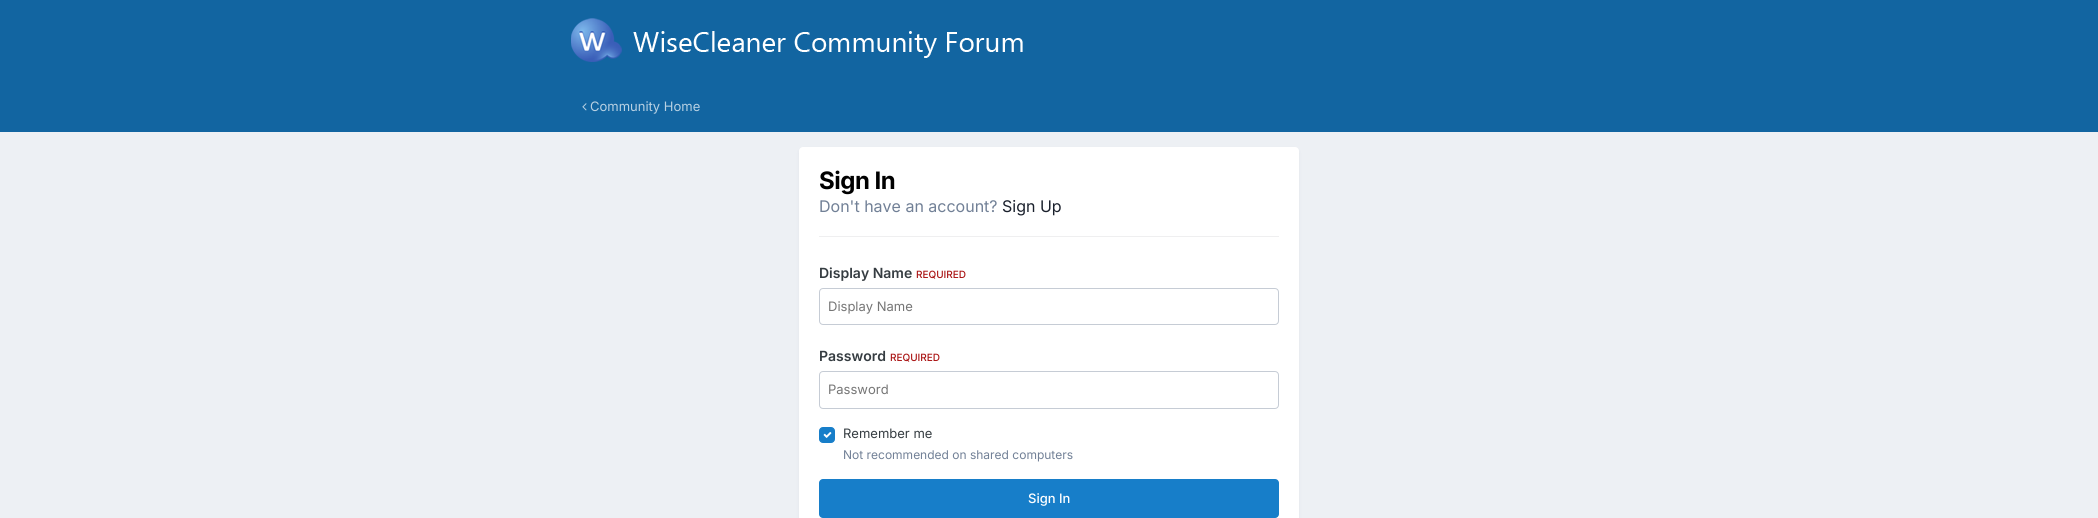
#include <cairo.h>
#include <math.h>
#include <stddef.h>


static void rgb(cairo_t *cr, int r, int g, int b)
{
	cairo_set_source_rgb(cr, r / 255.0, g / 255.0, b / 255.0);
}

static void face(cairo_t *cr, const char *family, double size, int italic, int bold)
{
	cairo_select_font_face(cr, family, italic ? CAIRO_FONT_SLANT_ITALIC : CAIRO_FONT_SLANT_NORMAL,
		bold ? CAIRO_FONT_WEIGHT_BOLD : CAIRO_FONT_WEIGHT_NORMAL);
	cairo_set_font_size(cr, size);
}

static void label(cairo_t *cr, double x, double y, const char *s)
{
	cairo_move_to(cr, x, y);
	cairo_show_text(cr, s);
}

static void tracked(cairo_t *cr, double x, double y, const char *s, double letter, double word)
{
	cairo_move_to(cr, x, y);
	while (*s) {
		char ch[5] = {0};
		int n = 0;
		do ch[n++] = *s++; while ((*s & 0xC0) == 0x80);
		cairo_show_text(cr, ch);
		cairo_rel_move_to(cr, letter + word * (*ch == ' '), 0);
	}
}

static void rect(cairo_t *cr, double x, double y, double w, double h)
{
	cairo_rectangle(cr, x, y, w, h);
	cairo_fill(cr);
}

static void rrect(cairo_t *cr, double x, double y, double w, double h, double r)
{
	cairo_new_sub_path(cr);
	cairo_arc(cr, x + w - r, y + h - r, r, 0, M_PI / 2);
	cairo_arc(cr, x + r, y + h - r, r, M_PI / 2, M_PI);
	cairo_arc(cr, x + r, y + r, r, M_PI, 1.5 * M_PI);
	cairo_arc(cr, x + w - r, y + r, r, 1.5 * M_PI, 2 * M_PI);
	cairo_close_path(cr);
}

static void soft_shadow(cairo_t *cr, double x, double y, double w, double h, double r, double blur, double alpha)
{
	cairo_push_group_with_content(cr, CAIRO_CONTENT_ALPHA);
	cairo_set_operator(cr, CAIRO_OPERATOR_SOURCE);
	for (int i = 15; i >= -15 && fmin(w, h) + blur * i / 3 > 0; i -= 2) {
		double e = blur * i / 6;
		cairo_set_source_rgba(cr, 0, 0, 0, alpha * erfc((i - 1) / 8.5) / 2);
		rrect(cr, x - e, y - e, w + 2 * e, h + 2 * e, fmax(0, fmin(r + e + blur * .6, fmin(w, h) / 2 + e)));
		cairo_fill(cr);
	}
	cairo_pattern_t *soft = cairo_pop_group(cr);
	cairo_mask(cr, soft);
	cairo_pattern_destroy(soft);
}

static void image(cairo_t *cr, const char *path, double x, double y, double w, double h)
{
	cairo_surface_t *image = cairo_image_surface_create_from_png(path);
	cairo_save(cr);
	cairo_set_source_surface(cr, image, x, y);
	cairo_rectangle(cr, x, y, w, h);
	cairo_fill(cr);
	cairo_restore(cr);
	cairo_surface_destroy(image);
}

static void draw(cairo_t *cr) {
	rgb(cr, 237, 240, 244);
	cairo_paint(cr);
	rgb(cr, 18, 101, 161);
	rect(cr, 0, 0, 2098, 132);
	image(cr, "image0.png", 571, 18, 452, 44);
	image(cr, "image1.png", 582, 103, 5, 8);
	face(cr, "Inter", 13, 0, 0);
	rgb(cr, 184, 209, 227);
	label(cr, 590, 111, "Community Home");
	rgb(cr, 45, 55, 72);
	soft_shadow(cr, 800, 150, 498, 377, 3, 2, 0.1);
	rgb(cr, 255, 255, 255);
	rrect(cr, 799, 147, 500, 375, 4);
	cairo_fill(cr);
	face(cr, "Inter", 24, 0, 1);
	rgb(cr, 0, 0, 0);
	tracked(cr, 819, 189, "Sign In", -0.5, 0);
	face(cr, "Inter", 16, 0, 0);
	rgb(cr, 113, 128, 150);
	label(cr, 819, 212, "Don't have an account?");
	rgb(cr, 26, 32, 44);
	label(cr, 1002, 212, "Sign Up");
	rgb(cr, 239, 239, 240);
	rect(cr, 819, 236, 460, 1);
	face(cr, "Inter SemiBold", 14, 0, 0);
	rgb(cr, 53, 60, 65);
	label(cr, 819, 278, "Display Name");
	face(cr, "Inter Medium", 10, 0, 0);
	rgb(cr, 170, 20, 20);
	label(cr, 916, 278, "REQUIRED");
	rrect(cr, 819.5, 288.5, 459, 36, 3.5);
	rgb(cr, 198, 204, 213);
	cairo_set_line_width(cr, 1);
	cairo_stroke(cr);
	face(cr, "Inter", 13, 0, 0);
	rgb(cr, 117, 117, 117);
	label(cr, 828, 311, "Display Name");
	face(cr, "Inter SemiBold", 14, 0, 0);
	rgb(cr, 53, 60, 65);
	label(cr, 819, 361, "Password");
	face(cr, "Inter Medium", 10, 0, 0);
	rgb(cr, 170, 20, 20);
	label(cr, 890, 361, "REQUIRED");
	rrect(cr, 819.5, 371.5, 459, 37, 3.5);
	rgb(cr, 198, 204, 213);
	cairo_stroke(cr);
	face(cr, "Inter", 13, 0, 0);
	rgb(cr, 117, 117, 117);
	label(cr, 828, 394, "Password");
	rgb(cr, 23, 126, 201);
	rrect(cr, 819.5, 427.5, 15, 15, 3.5);
	cairo_fill_preserve(cr);
	cairo_stroke(cr);
	image(cr, "image2.png", 823, 432, 9, 6);
	rgb(cr, 53, 60, 65);
	label(cr, 843, 438, "Remember me");
	face(cr, "Inter", 12, 0, 0);
	rgb(cr, 113, 128, 150);
	label(cr, 843, 459, "Not recommended on shared computers");
	rgb(cr, 23, 126, 201);
	rrect(cr, 819, 479, 460, 39, 4);
	cairo_fill(cr);
	face(cr, "Inter Medium", 13, 0, 0);
	rgb(cr, 255, 255, 255);
	label(cr, 1028, 503, "Sign In");
}

int main(void) {
	cairo_surface_t *surface = cairo_image_surface_create(CAIRO_FORMAT_RGB24, 2098, 518);
	cairo_t *cr = cairo_create(surface);
	cairo_font_options_t *options = cairo_font_options_create();
	cairo_font_options_set_hint_metrics(options, CAIRO_HINT_METRICS_OFF);
	cairo_font_options_set_hint_style(options, CAIRO_HINT_STYLE_NONE);
	cairo_set_font_options(cr, options);
	cairo_set_miter_limit(cr, 4);
	draw(cr);
	cairo_surface_write_to_png(surface, "render.png");
	cairo_font_options_destroy(options);
	cairo_destroy(cr);
	cairo_surface_destroy(surface);
	return 0;
}
